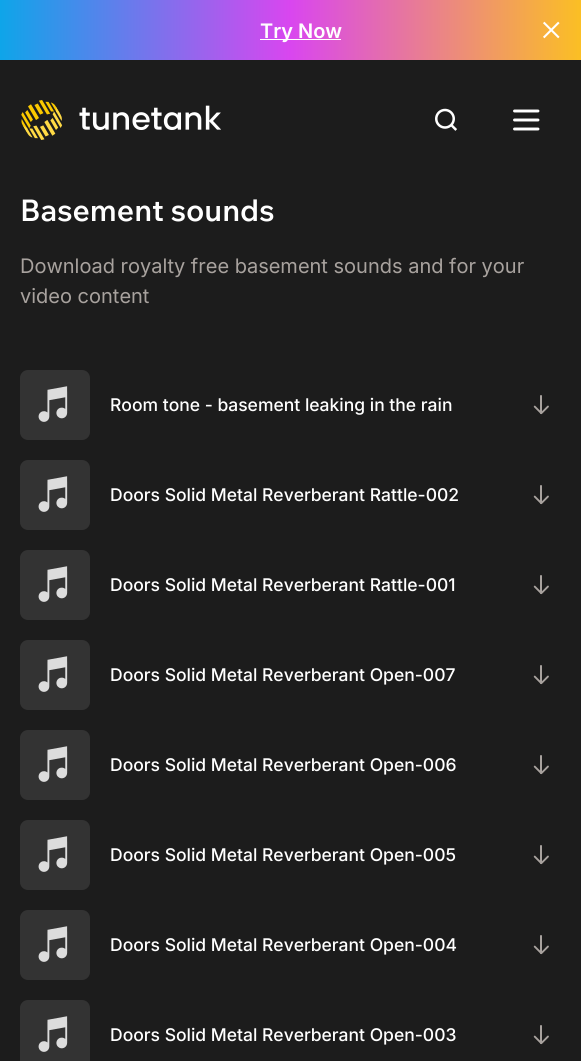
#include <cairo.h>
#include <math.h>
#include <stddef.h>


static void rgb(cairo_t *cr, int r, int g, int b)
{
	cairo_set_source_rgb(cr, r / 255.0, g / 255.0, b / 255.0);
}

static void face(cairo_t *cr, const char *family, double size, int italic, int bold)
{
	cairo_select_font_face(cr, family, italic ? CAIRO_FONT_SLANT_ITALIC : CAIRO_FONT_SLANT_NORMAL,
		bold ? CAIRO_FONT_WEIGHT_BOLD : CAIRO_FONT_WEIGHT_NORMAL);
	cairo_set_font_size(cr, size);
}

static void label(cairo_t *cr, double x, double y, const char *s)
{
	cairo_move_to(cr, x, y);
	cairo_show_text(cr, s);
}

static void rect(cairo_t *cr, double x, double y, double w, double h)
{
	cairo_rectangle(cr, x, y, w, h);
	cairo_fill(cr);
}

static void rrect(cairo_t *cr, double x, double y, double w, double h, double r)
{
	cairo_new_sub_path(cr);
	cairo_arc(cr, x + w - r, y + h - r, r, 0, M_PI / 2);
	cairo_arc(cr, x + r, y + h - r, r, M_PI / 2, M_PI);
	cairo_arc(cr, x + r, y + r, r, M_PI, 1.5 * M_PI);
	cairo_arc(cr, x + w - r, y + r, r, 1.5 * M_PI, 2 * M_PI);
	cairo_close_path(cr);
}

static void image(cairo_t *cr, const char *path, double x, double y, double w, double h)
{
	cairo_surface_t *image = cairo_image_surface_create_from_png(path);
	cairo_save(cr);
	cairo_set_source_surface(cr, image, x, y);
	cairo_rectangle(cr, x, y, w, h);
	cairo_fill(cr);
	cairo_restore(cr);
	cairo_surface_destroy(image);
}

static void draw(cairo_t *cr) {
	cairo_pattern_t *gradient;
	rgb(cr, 28, 28, 28);
	cairo_paint(cr);
	gradient = cairo_pattern_create_linear(0, 30, 581, 30);
	cairo_pattern_add_color_stop_rgba(gradient, 0, 0.055, 0.647, 0.914, 1);
	cairo_pattern_add_color_stop_rgba(gradient, 0.5, 0.851, 0.275, 0.937, 1);
	cairo_pattern_add_color_stop_rgba(gradient, 1, 0.984, 0.749, 0.141, 1);
	cairo_set_source(cr, gradient);
	cairo_pattern_destroy(gradient);
	rect(cr, 0, 0, 581, 60);
	rgb(cr, 255, 255, 255);
	rect(cr, 260, 39, 81, 1);
	face(cr, "Inter SemiBold", 20, 0, 0);
	label(cr, 260, 38, "Try Now");
	image(cr, "image0.png", 543, 21, 17, 18);
	image(cr, "image1.png", 21, 100, 200, 40);
	image(cr, "image2.png", 435, 108, 22, 23);
	cairo_new_path(cr);
	cairo_move_to(cr, 514.5, 120);
	cairo_line_to(cr, 538, 120);
	cairo_move_to(cr, 514.5, 111);
	cairo_line_to(cr, 538, 111);
	cairo_move_to(cr, 514.5, 129);
	cairo_line_to(cr, 538, 129);
	cairo_set_line_width(cr, 2.9);
	cairo_set_line_cap(cr, CAIRO_LINE_CAP_ROUND);
	cairo_set_line_join(cr, CAIRO_LINE_JOIN_ROUND);
	cairo_stroke(cr);
	face(cr, "Wix Madefor Text SemiBold", 30, 0, 0);
	label(cr, 20, 221, "Basement sounds");
	face(cr, "Inter", 20, 0, 0);
	rgb(cr, 168, 162, 158);
	label(cr, 20, 273, "Download royalty free basement sounds and for your");
	label(cr, 20, 303, "video content");
	rgb(cr, 51, 51, 51);
	rrect(cr, 20, 370, 70, 70, 8);
	cairo_fill(cr);
	image(cr, "image3.png", 38, 386, 30, 36);
	face(cr, "Inter Medium", 17.5, 0, 0);
	rgb(cr, 255, 255, 255);
	label(cr, 110, 411, "Room tone - basement leaking in the rain");
	image(cr, "image4.png", 533, 395, 16, 20);
	rgb(cr, 51, 51, 51);
	rrect(cr, 20, 460, 70, 70, 8);
	cairo_fill(cr);
	image(cr, "image3.png", 38, 476, 30, 36);
	rgb(cr, 255, 255, 255);
	label(cr, 110, 501, "Doors Solid Metal Reverberant Rattle-002");
	image(cr, "image4.png", 533, 485, 16, 20);
	rgb(cr, 51, 51, 51);
	rrect(cr, 20, 550, 70, 70, 8);
	cairo_fill(cr);
	image(cr, "image3.png", 38, 566, 30, 36);
	rgb(cr, 255, 255, 255);
	label(cr, 110, 591, "Doors Solid Metal Reverberant Rattle-001");
	image(cr, "image4.png", 533, 575, 16, 20);
	rgb(cr, 51, 51, 51);
	rrect(cr, 20, 640, 70, 70, 8);
	cairo_fill(cr);
	image(cr, "image3.png", 38, 656, 30, 36);
	rgb(cr, 255, 255, 255);
	label(cr, 110, 681, "Doors Solid Metal Reverberant Open-007");
	image(cr, "image4.png", 533, 665, 16, 20);
	rgb(cr, 51, 51, 51);
	rrect(cr, 20, 730, 70, 70, 8);
	cairo_fill(cr);
	image(cr, "image3.png", 38, 746, 30, 36);
	rgb(cr, 255, 255, 255);
	label(cr, 110, 771, "Doors Solid Metal Reverberant Open-006");
	image(cr, "image4.png", 533, 755, 16, 20);
	rgb(cr, 51, 51, 51);
	rrect(cr, 20, 820, 70, 70, 8);
	cairo_fill(cr);
	image(cr, "image3.png", 38, 836, 30, 36);
	rgb(cr, 255, 255, 255);
	label(cr, 110, 861, "Doors Solid Metal Reverberant Open-005");
	image(cr, "image4.png", 533, 845, 16, 20);
	rgb(cr, 51, 51, 51);
	rrect(cr, 20, 910, 70, 70, 8);
	cairo_fill(cr);
	image(cr, "image3.png", 38, 926, 30, 36);
	rgb(cr, 255, 255, 255);
	label(cr, 110, 951, "Doors Solid Metal Reverberant Open-004");
	image(cr, "image4.png", 533, 935, 16, 20);
	rgb(cr, 51, 51, 51);
	rrect(cr, 20, 1000, 70, 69, 8);
	cairo_fill(cr);
	image(cr, "image3.png", 38, 1016, 30, 36);
	rgb(cr, 255, 255, 255);
	label(cr, 110, 1041, "Doors Solid Metal Reverberant Open-003");
	image(cr, "image4.png", 533, 1025, 16, 20);
}

int main(void) {
	cairo_surface_t *surface = cairo_image_surface_create(CAIRO_FORMAT_RGB24, 581, 1061);
	cairo_t *cr = cairo_create(surface);
	cairo_font_options_t *options = cairo_font_options_create();
	cairo_font_options_set_hint_metrics(options, CAIRO_HINT_METRICS_OFF);
	cairo_font_options_set_hint_style(options, CAIRO_HINT_STYLE_NONE);
	cairo_set_font_options(cr, options);
	cairo_set_miter_limit(cr, 4);
	draw(cr);
	cairo_surface_write_to_png(surface, "render.png");
	cairo_font_options_destroy(options);
	cairo_destroy(cr);
	cairo_surface_destroy(surface);
	return 0;
}
